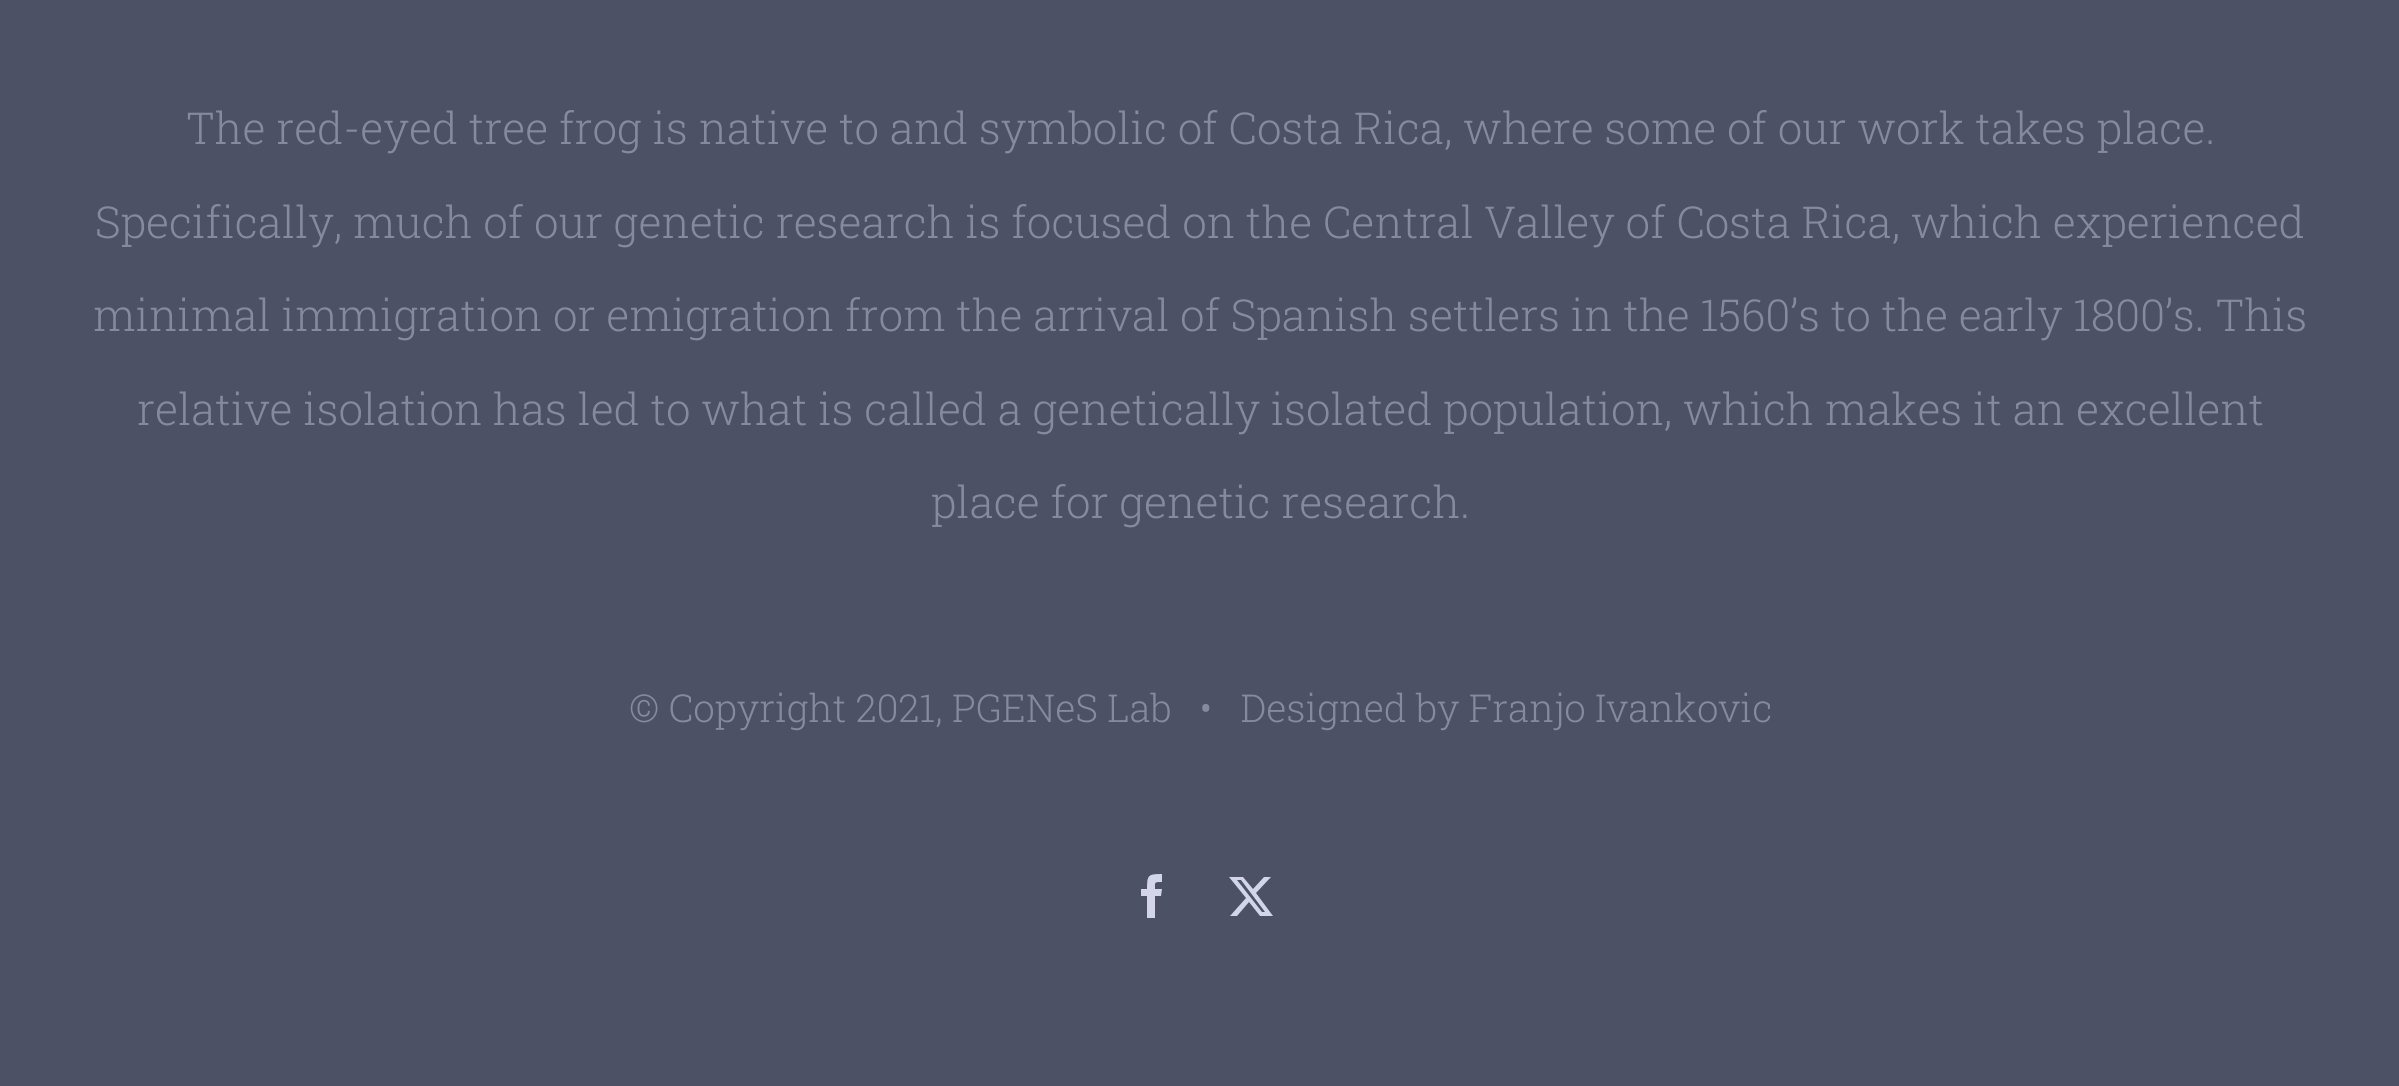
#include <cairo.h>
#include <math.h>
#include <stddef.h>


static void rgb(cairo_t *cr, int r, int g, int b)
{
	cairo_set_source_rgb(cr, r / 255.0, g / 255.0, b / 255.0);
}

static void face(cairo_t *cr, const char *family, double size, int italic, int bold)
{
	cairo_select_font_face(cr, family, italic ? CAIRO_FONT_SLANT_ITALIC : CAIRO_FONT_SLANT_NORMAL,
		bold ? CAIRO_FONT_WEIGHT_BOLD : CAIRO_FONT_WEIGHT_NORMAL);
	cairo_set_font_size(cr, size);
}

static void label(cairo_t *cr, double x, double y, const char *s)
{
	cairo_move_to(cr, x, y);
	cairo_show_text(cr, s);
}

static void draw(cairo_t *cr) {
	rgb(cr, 76, 81, 102);
	cairo_paint(cr);
	face(cr, "Roboto Slab Light", 44, 0, 0);
	rgb(cr, 133, 138, 159);
	label(cr, 186, 144, "The red-eyed tree frog is native to and symbolic of Costa Rica, where some of our work takes place.");
	label(cr, 95, 238, "Specifically, much of our genetic research is focused on the Central Valley of Costa Rica, which experienced");
	label(cr, 93, 331, "minimal immigration or emigration from the arrival of Spanish settlers in the 1560’s to the early 1800’s. This");
	label(cr, 137, 425, "relative isolation has led to what is called a genetically isolated population, which makes it an excellent");
	label(cr, 931, 518, "place for genetic research.");
	face(cr, "Roboto Slab Light", 38.5, 0, 0);
	label(cr, 629, 722, "© Copyright 2021, PGENeS Lab   •   Designed by Franjo Ivankovic");
	rgb(cr, 211, 214, 234);
	cairo_new_path(cr);
	cairo_move_to(cr, 1155, 918);
	cairo_line_to(cr, 1147, 918);
	cairo_line_to(cr, 1147, 896);
	cairo_line_to(cr, 1141, 896);
	cairo_line_to(cr, 1141, 889);
	cairo_line_to(cr, 1147, 889);
	cairo_curve_to(cr, 1147, 875, 1148, 874, 1162, 874);
	cairo_line_to(cr, 1162, 882);
	cairo_curve_to(cr, 1154, 882, 1155, 882, 1155, 889);
	cairo_line_to(cr, 1162, 889);
	cairo_line_to(cr, 1161, 896);
	cairo_line_to(cr, 1155, 896);
	cairo_close_path(cr);
	cairo_fill(cr);
	cairo_new_path(cr);
	cairo_move_to(cr, 1264, 877);
	cairo_line_to(cr, 1271, 877);
	cairo_line_to(cr, 1256, 893);
	cairo_line_to(cr, 1273, 916);
	cairo_line_to(cr, 1260, 916);
	cairo_line_to(cr, 1249, 902);
	cairo_line_to(cr, 1237, 916);
	cairo_line_to(cr, 1230, 916);
	cairo_line_to(cr, 1246, 898);
	cairo_line_to(cr, 1229, 877);
	cairo_line_to(cr, 1243, 877);
	cairo_line_to(cr, 1253, 889);
	cairo_close_path(cr);
	cairo_move_to(cr, 1262, 912);
	cairo_line_to(cr, 1265, 912);
	cairo_line_to(cr, 1241, 880);
	cairo_line_to(cr, 1237, 880);
	cairo_close_path(cr);
	cairo_fill(cr);
}

int main(void) {
	cairo_surface_t *surface = cairo_image_surface_create(CAIRO_FORMAT_RGB24, 2399, 1086);
	cairo_t *cr = cairo_create(surface);
	cairo_font_options_t *options = cairo_font_options_create();
	cairo_font_options_set_hint_metrics(options, CAIRO_HINT_METRICS_OFF);
	cairo_font_options_set_hint_style(options, CAIRO_HINT_STYLE_NONE);
	cairo_set_font_options(cr, options);
	cairo_set_miter_limit(cr, 4);
	draw(cr);
	cairo_surface_write_to_png(surface, "render.png");
	cairo_font_options_destroy(options);
	cairo_destroy(cr);
	cairo_surface_destroy(surface);
	return 0;
}
